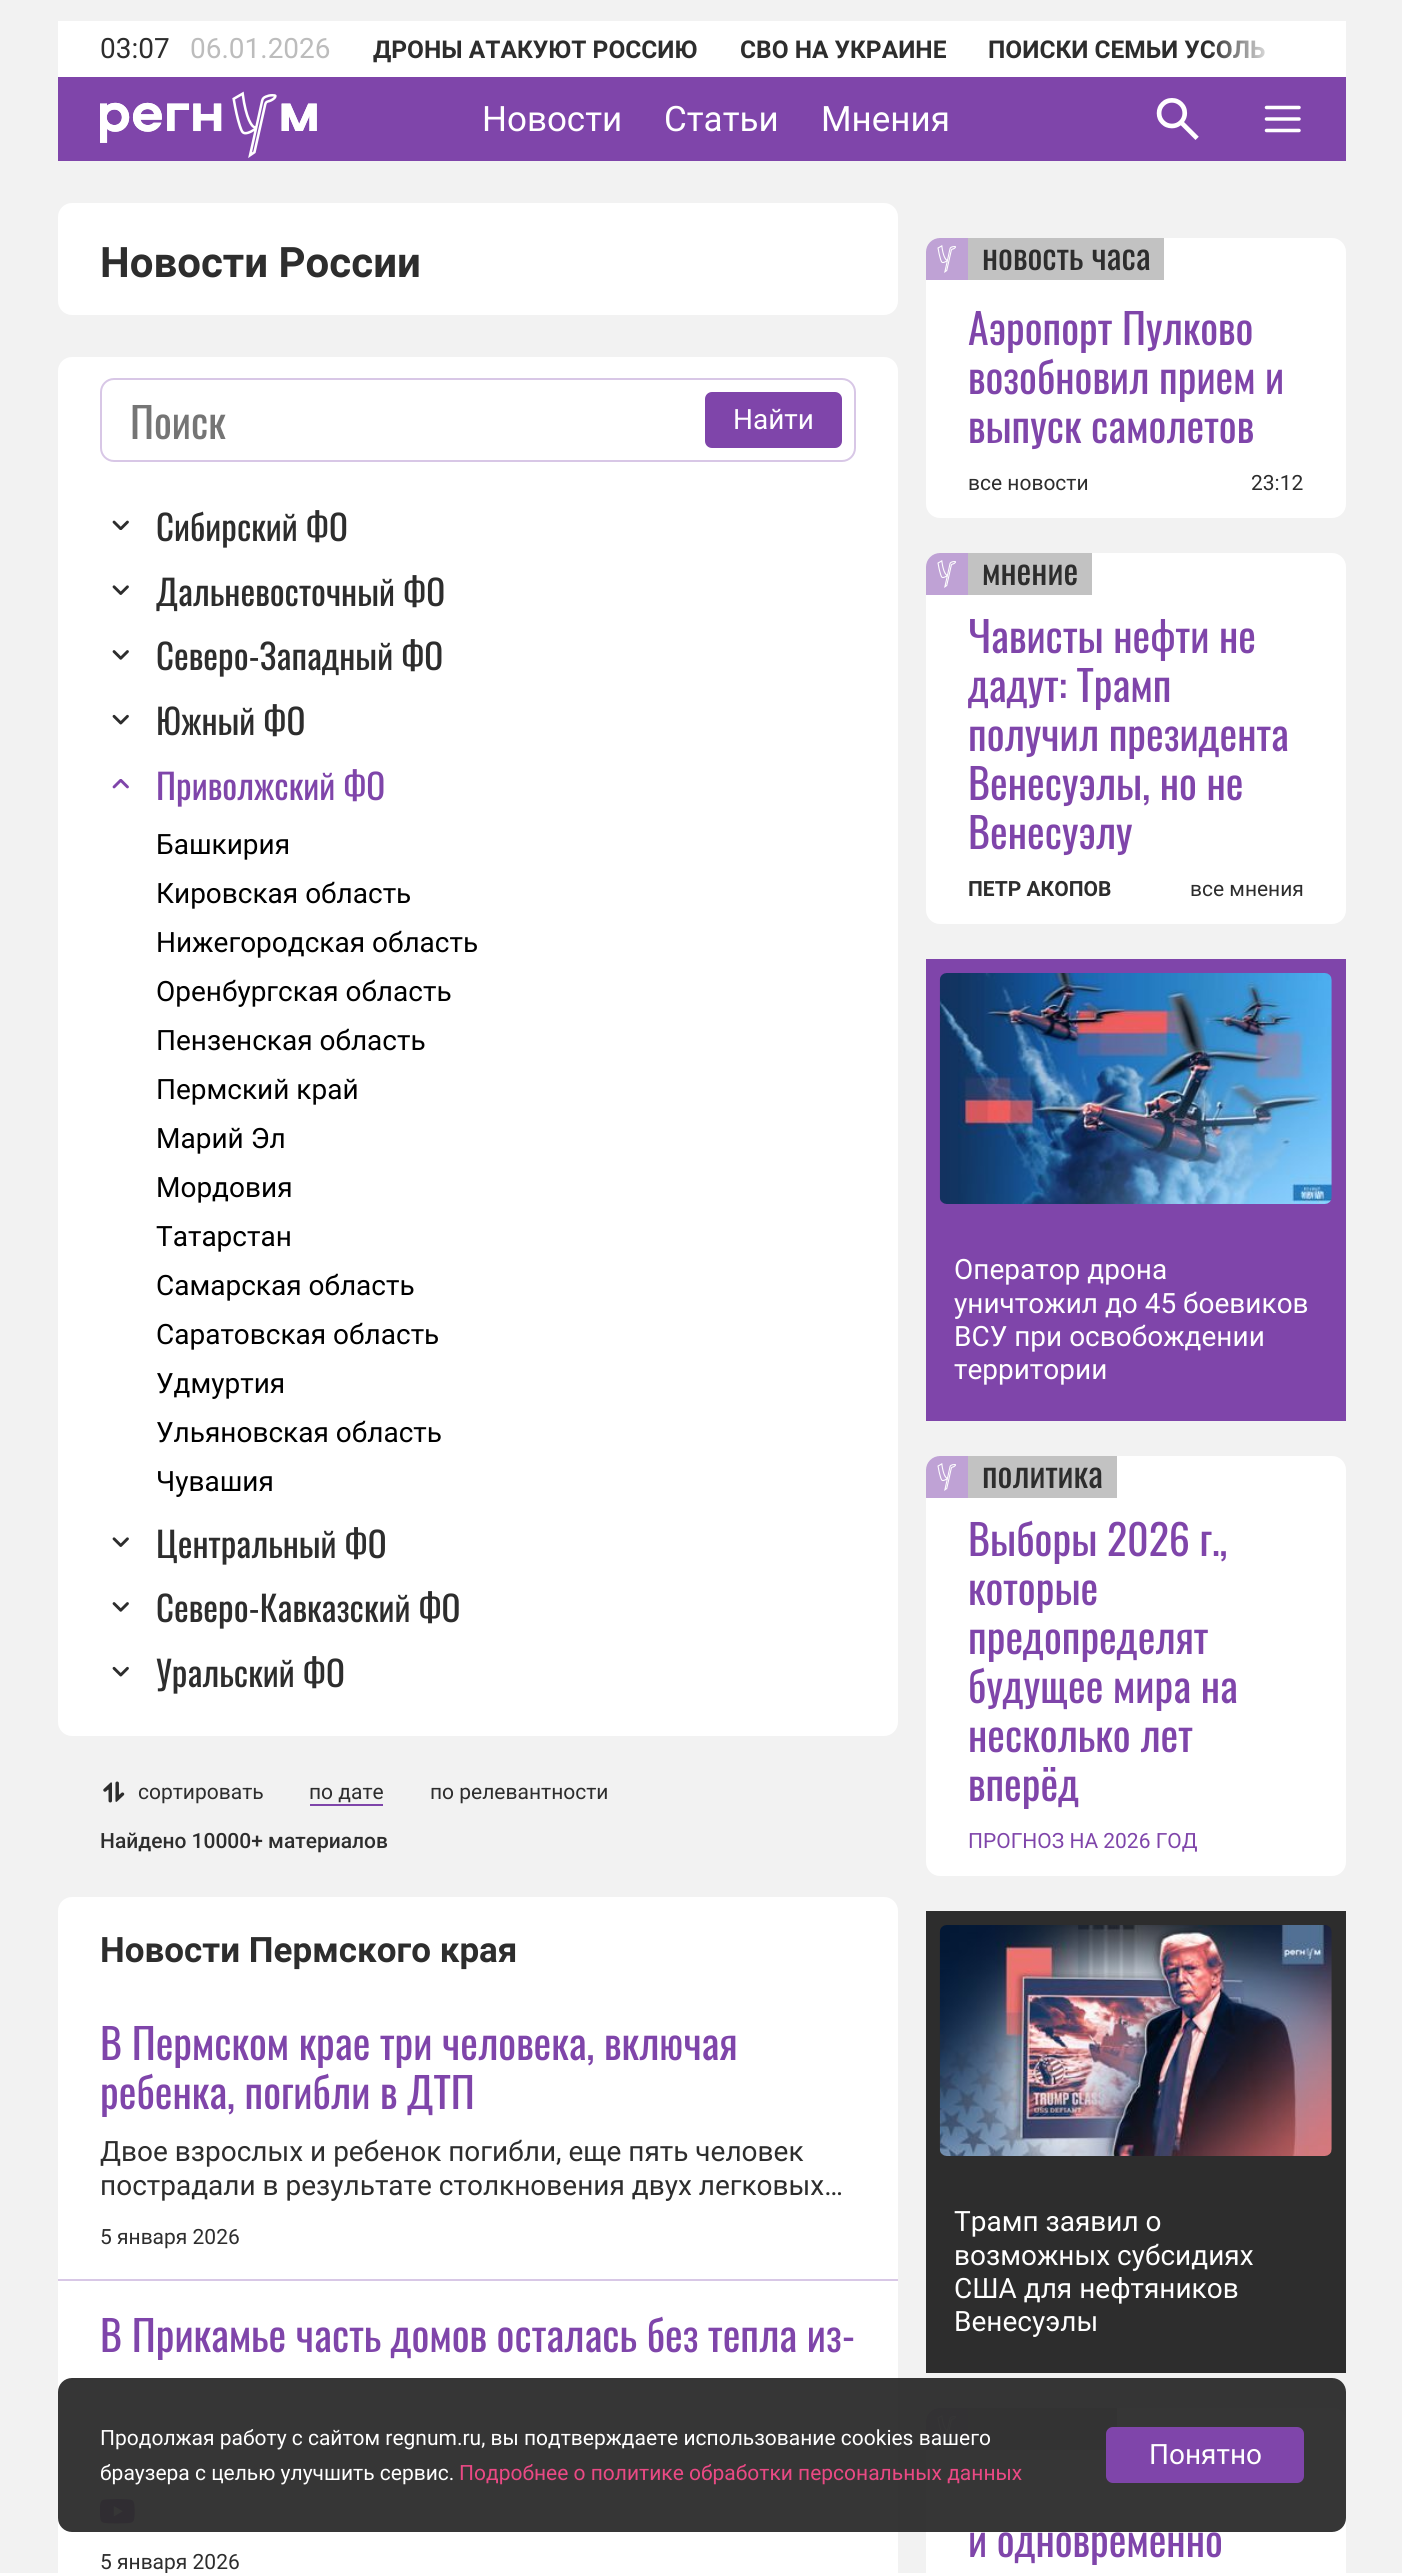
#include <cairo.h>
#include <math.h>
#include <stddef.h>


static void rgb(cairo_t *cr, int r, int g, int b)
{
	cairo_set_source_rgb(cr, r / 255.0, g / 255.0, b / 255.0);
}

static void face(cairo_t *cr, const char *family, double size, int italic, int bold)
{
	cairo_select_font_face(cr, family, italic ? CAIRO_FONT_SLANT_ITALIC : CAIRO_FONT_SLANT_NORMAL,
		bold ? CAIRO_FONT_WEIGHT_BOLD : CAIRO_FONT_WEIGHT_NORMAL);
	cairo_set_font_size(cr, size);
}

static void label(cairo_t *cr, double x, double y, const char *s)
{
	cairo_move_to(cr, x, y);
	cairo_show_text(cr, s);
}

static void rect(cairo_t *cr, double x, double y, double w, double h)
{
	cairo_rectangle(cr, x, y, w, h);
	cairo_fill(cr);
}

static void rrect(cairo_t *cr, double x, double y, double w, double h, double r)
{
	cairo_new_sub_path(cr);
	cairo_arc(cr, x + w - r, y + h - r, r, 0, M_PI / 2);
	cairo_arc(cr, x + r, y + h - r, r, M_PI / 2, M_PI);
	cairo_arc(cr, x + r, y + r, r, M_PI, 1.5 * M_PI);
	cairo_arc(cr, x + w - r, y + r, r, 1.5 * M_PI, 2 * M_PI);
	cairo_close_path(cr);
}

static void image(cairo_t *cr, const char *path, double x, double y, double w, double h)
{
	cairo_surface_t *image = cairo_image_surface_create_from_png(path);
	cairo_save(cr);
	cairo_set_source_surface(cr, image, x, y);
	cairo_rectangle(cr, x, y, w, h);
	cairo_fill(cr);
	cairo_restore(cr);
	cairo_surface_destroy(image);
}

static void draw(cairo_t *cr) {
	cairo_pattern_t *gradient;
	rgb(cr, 242, 242, 242);
	cairo_paint(cr);
	rgb(cr, 255, 255, 255);
	rect(cr, 58, 21, 1288, 56);
	face(cr, "Roboto", 28, 0, 0);
	rgb(cr, 45, 45, 45);
	label(cr, 100, 58, "03:07");
	rgb(cr, 188, 188, 188);
	label(cr, 190, 58, "06.01.2026");
	face(cr, "Roboto", 24.5, 0, 1);
	rgb(cr, 45, 45, 45);
	label(cr, 373, 58, "ДРОНЫ АТАКУЮТ РОССИЮ");
	label(cr, 740, 58, "СВО НА УКРАИНЕ");
	label(cr, 988, 58, "ПОИСКИ СЕМЬИ УСОЛЬ");
	gradient = cairo_pattern_create_linear(1306, 49, 1209, 49);
	cairo_pattern_add_color_stop_rgba(gradient, 0.28, 1, 1, 1, 1);
	cairo_pattern_add_color_stop_rgba(gradient, 1, 1, 1, 1, 0);
	cairo_set_source(cr, gradient);
	cairo_pattern_destroy(gradient);
	rect(cr, 1211, 40, 54, 19);
	rgb(cr, 127, 69, 170);
	rect(cr, 58, 77, 1288, 84);
	image(cr, "image0.png", 100, 91, 217, 67);
	face(cr, "Roboto", 35, 0, 0);
	rgb(cr, 255, 255, 255);
	label(cr, 482, 131, "Новости");
	label(cr, 664, 131, "Статьи");
	label(cr, 821, 131, "Мнения");
	image(cr, "image1.png", 1156, 98, 43, 42);
	cairo_new_path(cr);
	cairo_move_to(cr, 1266.5, 130.5);
	cairo_line_to(cr, 1299, 130.5);
	cairo_move_to(cr, 1266.5, 119);
	cairo_line_to(cr, 1299, 119);
	cairo_move_to(cr, 1266.5, 107.5);
	cairo_line_to(cr, 1299, 107.5);
	cairo_set_line_width(cr, 3.5);
	cairo_set_line_cap(cr, CAIRO_LINE_CAP_ROUND);
	cairo_set_line_join(cr, CAIRO_LINE_JOIN_ROUND);
	cairo_stroke(cr);
	rrect(cr, 58, 203, 840, 112, 14);
	cairo_fill(cr);
	face(cr, "Roboto", 42, 0, 1);
	rgb(cr, 45, 45, 45);
	label(cr, 100, 277, "Новости России");
	rgb(cr, 255, 255, 255);
	rrect(cr, 58, 357, 840, 1379, 14);
	cairo_fill(cr);
	rrect(cr, 101, 379, 754, 82, 13);
	rgb(cr, 216, 199, 230);
	cairo_set_line_width(cr, 2);
	cairo_set_line_cap(cr, CAIRO_LINE_CAP_BUTT);
	cairo_set_line_join(cr, CAIRO_LINE_JOIN_MITER);
	cairo_stroke(cr);
	face(cr, "Oswald", 42, 0, 0);
	rgb(cr, 117, 117, 117);
	label(cr, 130, 439, "Поиск");
	rgb(cr, 127, 69, 170);
	rrect(cr, 705, 392, 137, 56, 7);
	cairo_fill(cr);
	face(cr, "Roboto", 28, 0, 0);
	rgb(cr, 255, 255, 255);
	label(cr, 733, 429, "Найти");
	image(cr, "image2.png", 112, 520, 17, 10);
	face(cr, "Oswald", 35, 0, 0);
	rgb(cr, 45, 45, 45);
	label(cr, 156, 541, "Сибирский ФО");
	image(cr, "image3.png", 112, 585, 17, 10);
	label(cr, 156, 606, "Дальневосточный ФО");
	image(cr, "image4.png", 112, 650, 17, 10);
	label(cr, 156, 670, "Северо-Западный ФО");
	image(cr, "image5.png", 112, 714, 17, 11);
	label(cr, 156, 735, "Южный ФО");
	image(cr, "image6.png", 112, 779, 17, 10);
	rgb(cr, 127, 69, 170);
	label(cr, 156, 800, "Приволжский ФО");
	face(cr, "Roboto", 28, 0, 0);
	rgb(cr, 0, 0, 0);
	label(cr, 156, 854, "Башкирия");
	label(cr, 156, 903, "Кировская область");
	label(cr, 156, 952, "Нижегородская область");
	label(cr, 156, 1001, "Оренбургская область");
	label(cr, 156, 1050, "Пензенская область");
	label(cr, 156, 1099, "Пермский край");
	label(cr, 156, 1148, "Марий Эл");
	label(cr, 156, 1197, "Мордовия");
	label(cr, 156, 1246, "Татарстан");
	label(cr, 156, 1295, "Самарская область");
	label(cr, 156, 1344, "Саратовская область");
	label(cr, 156, 1393, "Удмуртия");
	label(cr, 156, 1442, "Ульяновская область");
	label(cr, 156, 1491, "Чувашия");
	image(cr, "image3.png", 112, 1537, 17, 10);
	face(cr, "Oswald", 35, 0, 0);
	rgb(cr, 45, 45, 45);
	label(cr, 156, 1558, "Центральный ФО");
	image(cr, "image4.png", 112, 1602, 17, 10);
	label(cr, 156, 1622, "Северо-Кавказский ФО");
	image(cr, "image5.png", 112, 1666, 17, 11);
	label(cr, 156, 1687, "Уральский ФО");
	image(cr, "image7.png", 103, 1781, 22, 22);
	face(cr, "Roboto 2", 21, 0, 0);
	label(cr, 138, 1799, "сортировать");
	label(cr, 309, 1799, "по дате");
	rgb(cr, 127, 69, 170);
	rect(cr, 310, 1804, 73, 2);
	rgb(cr, 45, 45, 45);
	label(cr, 430, 1799, "по релевантности");
	face(cr, "Roboto Medium", 21, 0, 0);
	label(cr, 100, 1848, "Найдено 10000+ материалов");
	rgb(cr, 255, 255, 255);
	rrect(cr, 58, 1897, 840, 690, 14);
	cairo_fill(cr);
	face(cr, "Roboto", 35, 0, 1);
	rgb(cr, 45, 45, 45);
	label(cr, 100, 1962, "Новости Пермского края");
	rgb(cr, 216, 199, 230);
	rect(cr, 58, 2279, 840, 2);
	face(cr, "Oswald", 42, 0, 0);
	rgb(cr, 127, 69, 170);
	label(cr, 100, 2060, "В Пермском крае три человека, включая");
	label(cr, 100, 2109, "ребенка, погибли в ДТП");
	face(cr, "Roboto", 28, 0, 0);
	rgb(cr, 45, 45, 45);
	label(cr, 100, 2161, "Двое взрослых и ребенок погибли, еще пять человек");
	label(cr, 100, 2195, "пострадали в результате столкновения двух легковых…");
	face(cr, "Roboto", 21, 0, 0);
	label(cr, 100, 2244, "5 января 2026");
	face(cr, "Oswald", 42, 0, 0);
	rgb(cr, 127, 69, 170);
	label(cr, 100, 2352, "В Прикамье часть домов осталась без тепла из-");
	image(cr, "image8.png", 100, 2499, 35, 25);
	face(cr, "Roboto", 21, 0, 0);
	rgb(cr, 45, 45, 45);
	label(cr, 100, 2569, "5 января 2026");
	rgb(cr, 255, 255, 255);
	rrect(cr, 926, 238, 420, 280, 14);
	cairo_fill(cr);
	image(cr, "image9.png", 926, 238, 42, 42);
	rgb(cr, 194, 194, 194);
	rect(cr, 968, 238, 196, 42);
	face(cr, "Oswald", 35, 0, 0);
	rgb(cr, 45, 45, 45);
	label(cr, 982, 270, "новость часа");
	face(cr, "Oswald", 42, 0, 0);
	rgb(cr, 127, 69, 170);
	label(cr, 968, 345, "Аэропорт Пулково");
	label(cr, 968, 394, "возобновил прием и");
	label(cr, 968, 443, "выпуск самолетов");
	face(cr, "Roboto", 21, 0, 0);
	rgb(cr, 45, 45, 45);
	label(cr, 968, 490, "все новости");
	label(cr, 1251, 490, "23:12");
	rgb(cr, 255, 255, 255);
	rrect(cr, 926, 553, 420, 371, 14);
	cairo_fill(cr);
	image(cr, "image9.png", 926, 553, 42, 42);
	rgb(cr, 194, 194, 194);
	rect(cr, 968, 553, 124, 42);
	face(cr, "Oswald", 35, 0, 0);
	rgb(cr, 45, 45, 45);
	label(cr, 982, 585, "мнение");
	face(cr, "Oswald", 42, 0, 0);
	rgb(cr, 127, 69, 170);
	label(cr, 968, 653, "Чависты нефти не");
	label(cr, 968, 702, "дадут: Трамп");
	label(cr, 968, 751, "получил президента");
	label(cr, 968, 800, "Венесуэлы, но не");
	label(cr, 968, 849, "Венесуэлу");
	face(cr, "Roboto", 21, 0, 1);
	rgb(cr, 45, 45, 45);
	label(cr, 968, 896, "ПЕТР АКОПОВ");
	face(cr, "Roboto", 21, 0, 0);
	label(cr, 1190, 896, "все мнения");
	rgb(cr, 127, 69, 170);
	rect(cr, 926, 959, 420, 462);
	image(cr, "image10.png", 939, 973, 393, 231);
	face(cr, "Roboto", 28, 0, 0);
	rgb(cr, 255, 255, 255);
	label(cr, 954, 1279, "Оператор дрона");
	label(cr, 954, 1313, "уничтожил до 45 боевиков");
	label(cr, 954, 1346, "ВСУ при освобождении");
	label(cr, 954, 1379, "территории");
	rrect(cr, 926, 1456, 420, 420, 14);
	cairo_fill(cr);
	image(cr, "image9.png", 926, 1456, 42, 42);
	rgb(cr, 194, 194, 194);
	rect(cr, 968, 1456, 149, 42);
	face(cr, "Oswald", 35, 0, 0);
	rgb(cr, 45, 45, 45);
	label(cr, 982, 1488, "политика");
	face(cr, "Oswald", 42, 0, 0);
	rgb(cr, 127, 69, 170);
	label(cr, 968, 1556, "Выборы 2026 г.,");
	label(cr, 968, 1605, "которые");
	label(cr, 968, 1654, "предопределят");
	label(cr, 968, 1703, "будущее мира на");
	label(cr, 968, 1752, "несколько лет");
	label(cr, 968, 1801, "вперёд");
	face(cr, "Roboto", 21, 0, 0);
	label(cr, 968, 1848, "ПРОГНОЗ НА 2026 ГОД");
	rgb(cr, 45, 45, 45);
	rect(cr, 926, 1911, 420, 462);
	image(cr, "image11.png", 939, 1925, 393, 231);
	face(cr, "Roboto", 28, 0, 0);
	rgb(cr, 255, 255, 255);
	label(cr, 954, 2231, "Трамп заявил о");
	label(cr, 954, 2265, "возможных субсидиях");
	label(cr, 954, 2298, "США для нефтяников");
	label(cr, 954, 2331, "Венесуэлы");
	rrect(cr, 926, 2408, 420, 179, 14);
	cairo_fill(cr);
	image(cr, "image9.png", 926, 2408, 42, 42);
	rgb(cr, 194, 194, 194);
	rect(cr, 968, 2408, 149, 42);
	face(cr, "Oswald", 42, 0, 0);
	rgb(cr, 127, 69, 170);
	label(cr, 968, 2557, "и одновременно");
	cairo_set_source_rgba(cr, 0.176, 0.176, 0.176, 0.95);
	rrect(cr, 58, 2378, 1288, 154, 14);
	cairo_fill(cr);
	face(cr, "Roboto", 21, 0, 0);
	rgb(cr, 255, 255, 255);
	label(cr, 100, 2445, "Продолжая работу с сайтом regnum.ru, вы подтверждаете использование cookies вашего");
	label(cr, 100, 2480, "браузера с целью улучшить сервис.");
	rgb(cr, 234, 73, 132);
	label(cr, 459, 2480, "Подробнее о политике обработки персональных данных");
	rgb(cr, 127, 69, 170);
	rrect(cr, 1106, 2427, 198, 56, 7);
	cairo_fill(cr);
	face(cr, "Roboto", 28, 0, 0);
	rgb(cr, 255, 255, 255);
	label(cr, 1149, 2464, "Понятно");
}

int main(void) {
	cairo_surface_t *surface = cairo_image_surface_create(CAIRO_FORMAT_RGB24, 1402, 2573);
	cairo_t *cr = cairo_create(surface);
	cairo_font_options_t *options = cairo_font_options_create();
	cairo_font_options_set_hint_metrics(options, CAIRO_HINT_METRICS_OFF);
	cairo_font_options_set_hint_style(options, CAIRO_HINT_STYLE_NONE);
	cairo_set_font_options(cr, options);
	cairo_set_miter_limit(cr, 4);
	draw(cr);
	cairo_surface_write_to_png(surface, "render.png");
	cairo_font_options_destroy(options);
	cairo_destroy(cr);
	cairo_surface_destroy(surface);
	return 0;
}
